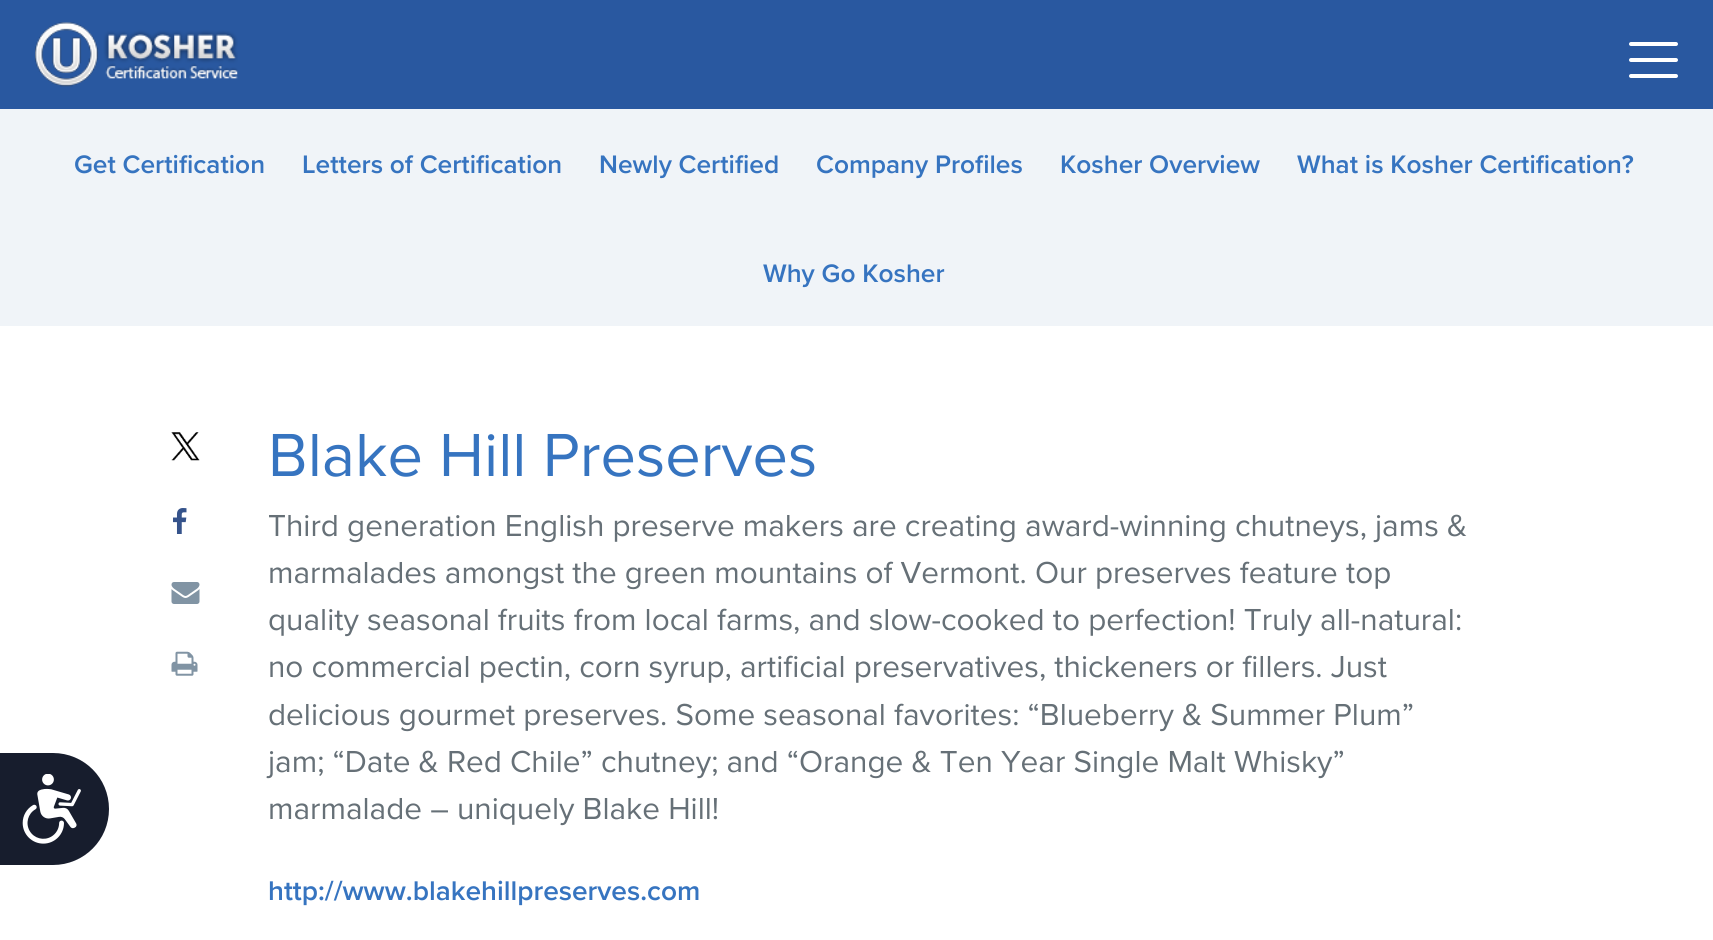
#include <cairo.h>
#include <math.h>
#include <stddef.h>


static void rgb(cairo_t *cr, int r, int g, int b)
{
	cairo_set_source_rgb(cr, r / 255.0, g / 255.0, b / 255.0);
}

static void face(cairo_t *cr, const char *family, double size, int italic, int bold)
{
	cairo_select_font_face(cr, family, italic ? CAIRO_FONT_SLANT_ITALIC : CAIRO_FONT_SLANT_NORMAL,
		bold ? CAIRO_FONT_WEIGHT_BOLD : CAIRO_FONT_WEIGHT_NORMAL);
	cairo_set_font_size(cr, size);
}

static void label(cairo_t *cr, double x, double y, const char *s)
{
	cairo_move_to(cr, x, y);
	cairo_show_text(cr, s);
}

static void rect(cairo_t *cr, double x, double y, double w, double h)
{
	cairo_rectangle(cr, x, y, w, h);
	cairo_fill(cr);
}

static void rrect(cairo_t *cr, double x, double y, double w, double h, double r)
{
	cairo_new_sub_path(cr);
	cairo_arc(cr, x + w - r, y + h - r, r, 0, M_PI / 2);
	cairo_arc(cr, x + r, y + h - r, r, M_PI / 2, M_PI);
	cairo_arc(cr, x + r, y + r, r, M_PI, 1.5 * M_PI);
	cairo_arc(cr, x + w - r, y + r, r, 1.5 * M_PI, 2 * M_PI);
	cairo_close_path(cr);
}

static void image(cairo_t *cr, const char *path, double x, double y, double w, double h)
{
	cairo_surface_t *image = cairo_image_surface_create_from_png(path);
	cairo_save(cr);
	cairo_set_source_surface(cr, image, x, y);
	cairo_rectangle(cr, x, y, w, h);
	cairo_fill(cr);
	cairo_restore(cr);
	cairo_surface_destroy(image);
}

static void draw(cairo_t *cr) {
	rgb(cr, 255, 255, 255);
	cairo_paint(cr);
	rgb(cr, 41, 88, 160);
	rect(cr, 0, 0, 1713, 109);
	image(cr, "image0.png", 35, 22, 203, 65);
	rgb(cr, 255, 255, 255);
	rrect(cr, 1629, 42, 49, 4, 2);
	cairo_fill(cr);
	rrect(cr, 1629, 58, 49, 4, 2);
	cairo_fill(cr);
	rrect(cr, 1629, 74, 49, 4, 2);
	cairo_fill(cr);
	rgb(cr, 240, 244, 248);
	rect(cr, 0, 109, 1713, 217);
	face(cr, "Proxima Nova SemiBold", 26.25, 0, 0);
	rgb(cr, 54, 116, 192);
	label(cr, 74, 173, "Get Certification");
	label(cr, 302, 173, "Letters of Certification");
	label(cr, 599, 173, "Newly Certified");
	label(cr, 816, 173, "Company Profiles");
	label(cr, 1060, 173, "Kosher Overview");
	label(cr, 1297, 173, "What is Kosher Certification?");
	label(cr, 763, 282, "Why Go Kosher");
	rgb(cr, 23, 29, 45);
	cairo_new_path(cr);
	cairo_move_to(cr, 0, 753);
	cairo_line_to(cr, 53, 753);
	cairo_curve_to(cr, 84, 753, 109, 778, 109, 809);
	cairo_curve_to(cr, 109, 840, 84, 865, 53, 865);
	cairo_line_to(cr, 0, 865);
	cairo_close_path(cr);
	cairo_fill(cr);
	image(cr, "image1.png", 22, 774, 59, 70);
	image(cr, "image2.png", 171, 432, 29, 29);
	image(cr, "image3.png", 173, 508, 14, 26);
	image(cr, "image4.png", 171, 582, 29, 22);
	image(cr, "image5.png", 171, 651, 27, 25);
	face(cr, "Proxima Nova", 63, 0, 0);
	rgb(cr, 54, 116, 192);
	label(cr, 268, 476, "Blake Hill Preserves");
	face(cr, "Proxima Nova", 31.5, 0, 0);
	rgb(cr, 102, 112, 119);
	label(cr, 268, 536, "Third generation English preserve makers are creating award-winning chutneys, jams &");
	label(cr, 268, 583, "marmalades amongst the green mountains of Vermont. Our preserves feature top");
	label(cr, 268, 630, "quality seasonal fruits from local farms, and slow-cooked to perfection! Truly all-natural:");
	label(cr, 268, 677, "no commercial pectin, corn syrup, artificial preservatives, thickeners or fillers. Just");
	label(cr, 268, 725, "delicious gourmet preserves. Some seasonal favorites: “Blueberry & Summer Plum”");
	label(cr, 268, 772, "jam; “Date & Red Chile” chutney; and “Orange & Ten Year Single Malt Whisky”");
	label(cr, 268, 819, "marmalade – uniquely Blake Hill!");
	face(cr, "Proxima Nova SemiBold", 28, 0, 0);
	rgb(cr, 54, 116, 192);
	label(cr, 268, 900, "http://www.blakehillpreserves.com");
}

int main(void) {
	cairo_surface_t *surface = cairo_image_surface_create(CAIRO_FORMAT_RGB24, 1713, 940);
	cairo_t *cr = cairo_create(surface);
	cairo_font_options_t *options = cairo_font_options_create();
	cairo_font_options_set_hint_metrics(options, CAIRO_HINT_METRICS_OFF);
	cairo_font_options_set_hint_style(options, CAIRO_HINT_STYLE_NONE);
	cairo_set_font_options(cr, options);
	cairo_set_miter_limit(cr, 4);
	draw(cr);
	cairo_surface_write_to_png(surface, "render.png");
	cairo_font_options_destroy(options);
	cairo_destroy(cr);
	cairo_surface_destroy(surface);
	return 0;
}
